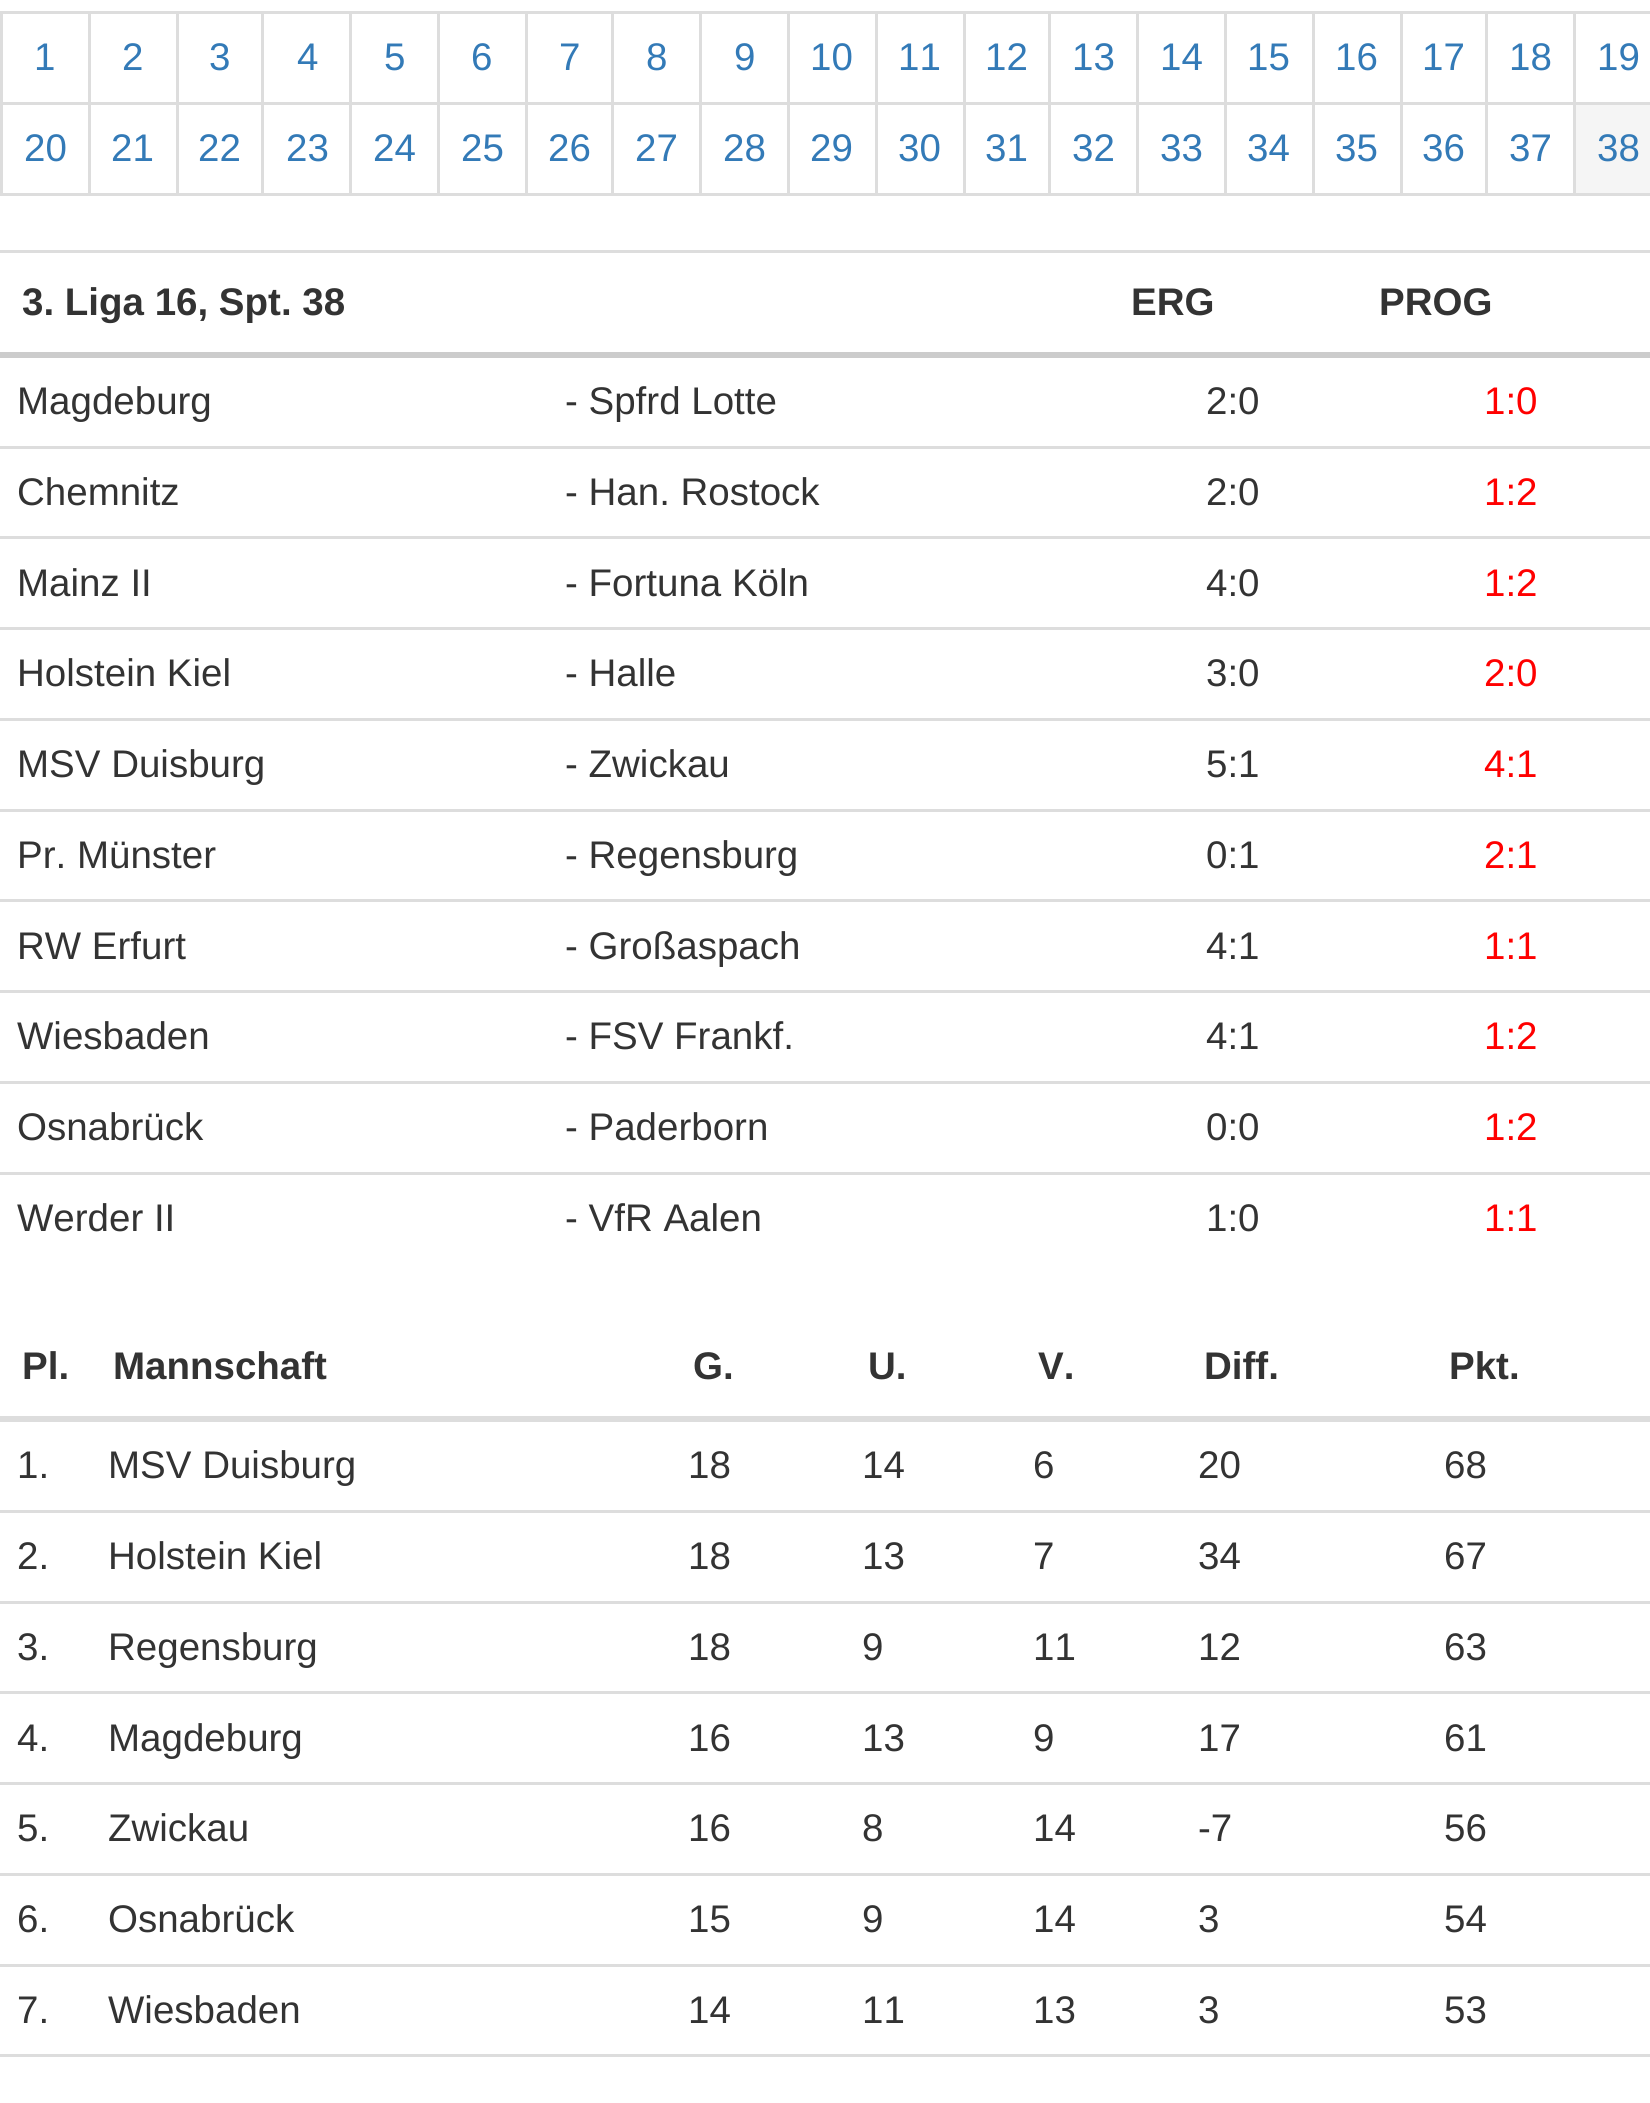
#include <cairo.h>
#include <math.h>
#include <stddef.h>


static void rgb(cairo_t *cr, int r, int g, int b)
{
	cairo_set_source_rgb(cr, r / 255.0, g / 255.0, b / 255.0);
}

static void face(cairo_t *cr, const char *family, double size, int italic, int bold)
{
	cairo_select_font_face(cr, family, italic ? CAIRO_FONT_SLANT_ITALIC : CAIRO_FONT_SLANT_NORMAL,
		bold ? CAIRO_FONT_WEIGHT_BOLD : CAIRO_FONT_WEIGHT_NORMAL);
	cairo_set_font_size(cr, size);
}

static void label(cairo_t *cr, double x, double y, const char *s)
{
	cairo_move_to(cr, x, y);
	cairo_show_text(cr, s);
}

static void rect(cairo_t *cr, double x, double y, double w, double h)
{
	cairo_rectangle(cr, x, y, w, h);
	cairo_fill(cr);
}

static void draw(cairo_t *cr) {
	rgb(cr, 255, 255, 255);
	cairo_paint(cr);
	rgb(cr, 221, 221, 221);
	rect(cr, 0, 11, 1650, 3);
	rect(cr, 0, 193, 1650, 3);
	rect(cr, 0, 11, 3, 184);
	face(cr, "Liberation Sans", 38.5, 0, 0);
	rgb(cr, 51, 122, 183);
	label(cr, 34, 70, "1");
	rgb(cr, 221, 221, 221);
	rect(cr, 1573, 102, 77, 3);
	rect(cr, 1573, 102, 3, 93);
	rect(cr, 1485, 102, 91, 3);
	rect(cr, 1485, 102, 3, 93);
	rect(cr, 1400, 102, 88, 3);
	rect(cr, 1400, 102, 3, 93);
	rect(cr, 1312, 102, 91, 3);
	rect(cr, 1312, 102, 3, 93);
	rect(cr, 1224, 102, 91, 3);
	rect(cr, 1224, 102, 3, 93);
	rect(cr, 1136, 102, 91, 3);
	rect(cr, 1136, 102, 3, 93);
	rect(cr, 1048, 102, 91, 3);
	rect(cr, 1048, 102, 3, 93);
	rect(cr, 963, 102, 88, 3);
	rect(cr, 963, 102, 3, 93);
	rect(cr, 875, 102, 90, 3);
	rect(cr, 875, 102, 3, 93);
	rect(cr, 787, 102, 90, 3);
	rect(cr, 787, 102, 3, 93);
	rect(cr, 699, 102, 90, 3);
	rect(cr, 699, 102, 3, 93);
	rect(cr, 611, 102, 90, 3);
	rect(cr, 611, 102, 3, 93);
	rect(cr, 525, 102, 88, 3);
	rect(cr, 525, 102, 3, 93);
	rect(cr, 437, 102, 91, 3);
	rect(cr, 437, 102, 3, 93);
	rect(cr, 349, 102, 91, 3);
	rect(cr, 349, 102, 3, 93);
	rect(cr, 261, 102, 91, 3);
	rect(cr, 261, 102, 3, 93);
	rect(cr, 176, 102, 88, 3);
	rect(cr, 176, 102, 3, 93);
	rect(cr, 88, 102, 91, 3);
	rect(cr, 88, 102, 3, 93);
	rect(cr, 0, 102, 91, 3);
	rect(cr, 88, 11, 3, 94);
	rgb(cr, 51, 122, 183);
	label(cr, 122, 70, "2");
	rgb(cr, 221, 221, 221);
	rect(cr, 176, 11, 3, 94);
	rgb(cr, 51, 122, 183);
	label(cr, 209, 70, "3");
	rgb(cr, 221, 221, 221);
	rect(cr, 261, 11, 3, 94);
	rgb(cr, 51, 122, 183);
	label(cr, 297, 70, "4");
	rgb(cr, 221, 221, 221);
	rect(cr, 349, 11, 3, 94);
	rgb(cr, 51, 122, 183);
	label(cr, 384, 70, "5");
	rgb(cr, 221, 221, 221);
	rect(cr, 437, 11, 3, 94);
	rgb(cr, 51, 122, 183);
	label(cr, 471, 70, "6");
	rgb(cr, 221, 221, 221);
	rect(cr, 525, 11, 3, 94);
	rgb(cr, 51, 122, 183);
	label(cr, 559, 70, "7");
	rgb(cr, 221, 221, 221);
	rect(cr, 611, 11, 3, 94);
	rgb(cr, 51, 122, 183);
	label(cr, 646, 70, "8");
	rgb(cr, 221, 221, 221);
	rect(cr, 699, 11, 3, 94);
	rgb(cr, 51, 122, 183);
	label(cr, 734, 70, "9");
	rgb(cr, 221, 221, 221);
	rect(cr, 787, 11, 3, 94);
	rgb(cr, 51, 122, 183);
	label(cr, 810, 70, "10");
	rgb(cr, 221, 221, 221);
	rect(cr, 875, 11, 3, 94);
	rgb(cr, 51, 122, 183);
	label(cr, 898, 70, "11");
	rgb(cr, 221, 221, 221);
	rect(cr, 963, 11, 3, 94);
	rgb(cr, 51, 122, 183);
	label(cr, 985, 70, "12");
	rgb(cr, 221, 221, 221);
	rect(cr, 1048, 11, 3, 94);
	rgb(cr, 51, 122, 183);
	label(cr, 1072, 70, "13");
	rgb(cr, 221, 221, 221);
	rect(cr, 1136, 11, 3, 94);
	rgb(cr, 51, 122, 183);
	label(cr, 1160, 70, "14");
	rgb(cr, 221, 221, 221);
	rect(cr, 1224, 11, 3, 94);
	rgb(cr, 51, 122, 183);
	label(cr, 1247, 70, "15");
	rgb(cr, 221, 221, 221);
	rect(cr, 1312, 11, 3, 94);
	rgb(cr, 51, 122, 183);
	label(cr, 1335, 70, "16");
	rgb(cr, 221, 221, 221);
	rect(cr, 1400, 11, 3, 94);
	rgb(cr, 51, 122, 183);
	label(cr, 1422, 70, "17");
	rgb(cr, 221, 221, 221);
	rect(cr, 1485, 11, 3, 94);
	rgb(cr, 51, 122, 183);
	label(cr, 1509, 70, "18");
	rgb(cr, 221, 221, 221);
	rect(cr, 1573, 11, 3, 94);
	rgb(cr, 51, 122, 183);
	label(cr, 1597, 70, "19");
	label(cr, 24, 161, "20");
	label(cr, 111, 161, "21");
	label(cr, 198, 161, "22");
	label(cr, 286, 161, "23");
	label(cr, 373, 161, "24");
	label(cr, 461, 161, "25");
	label(cr, 548, 161, "26");
	label(cr, 635, 161, "27");
	label(cr, 723, 161, "28");
	label(cr, 810, 161, "29");
	label(cr, 898, 161, "30");
	label(cr, 985, 161, "31");
	label(cr, 1072, 161, "32");
	label(cr, 1160, 161, "33");
	label(cr, 1247, 161, "34");
	label(cr, 1335, 161, "35");
	label(cr, 1422, 161, "36");
	label(cr, 1509, 161, "37");
	rgb(cr, 245, 245, 245);
	rect(cr, 1576, 105, 74, 88);
	rgb(cr, 51, 122, 183);
	label(cr, 1597, 161, "38");
	face(cr, "Liberation Sans", 38.5, 0, 1);
	rgb(cr, 51, 51, 51);
	label(cr, 22, 315, "3. Liga 16, Spt. 38");
	label(cr, 1131, 315, "ERG");
	rgb(cr, 221, 221, 221);
	rect(cr, 0, 250, 1650, 3);
	rgb(cr, 51, 51, 51);
	label(cr, 1379, 315, "PROG");
	rgb(cr, 204, 204, 204);
	rect(cr, 0, 352, 1650, 6);
	face(cr, "Liberation Sans", 38.5, 0, 0);
	rgb(cr, 51, 51, 51);
	label(cr, 17, 414, "Magdeburg");
	label(cr, 565, 414, "- Spfrd Lotte");
	label(cr, 1206, 414, "2:0");
	rgb(cr, 255, 0, 0);
	label(cr, 1484, 414, "1:0");
	rgb(cr, 51, 51, 51);
	label(cr, 17, 505, "Chemnitz");
	label(cr, 565, 505, "- Han. Rostock");
	label(cr, 1206, 505, "2:0");
	rgb(cr, 221, 221, 221);
	rect(cr, 0, 446, 1650, 3);
	rgb(cr, 255, 0, 0);
	label(cr, 1484, 505, "1:2");
	rgb(cr, 51, 51, 51);
	label(cr, 17, 596, "Mainz II");
	label(cr, 565, 596, "- Fortuna Köln");
	label(cr, 1206, 596, "4:0");
	rgb(cr, 221, 221, 221);
	rect(cr, 0, 536, 1650, 3);
	rgb(cr, 255, 0, 0);
	label(cr, 1484, 596, "1:2");
	rgb(cr, 51, 51, 51);
	label(cr, 17, 686, "Holstein Kiel");
	label(cr, 565, 686, "- Halle");
	label(cr, 1206, 686, "3:0");
	rgb(cr, 221, 221, 221);
	rect(cr, 0, 627, 1650, 3);
	rgb(cr, 255, 0, 0);
	label(cr, 1484, 686, "2:0");
	rgb(cr, 51, 51, 51);
	label(cr, 17, 777, "MSV Duisburg");
	label(cr, 565, 777, "- Zwickau");
	label(cr, 1206, 777, "5:1");
	rgb(cr, 221, 221, 221);
	rect(cr, 0, 718, 1650, 3);
	rgb(cr, 255, 0, 0);
	label(cr, 1484, 777, "4:1");
	rgb(cr, 51, 51, 51);
	label(cr, 17, 868, "Pr. Münster");
	label(cr, 565, 868, "- Regensburg");
	label(cr, 1206, 868, "0:1");
	rgb(cr, 221, 221, 221);
	rect(cr, 0, 809, 1650, 3);
	rgb(cr, 255, 0, 0);
	label(cr, 1484, 868, "2:1");
	rgb(cr, 51, 51, 51);
	label(cr, 17, 959, "RW Erfurt");
	label(cr, 565, 959, "- Großaspach");
	label(cr, 1206, 959, "4:1");
	rgb(cr, 221, 221, 221);
	rect(cr, 0, 899, 1650, 3);
	rgb(cr, 255, 0, 0);
	label(cr, 1484, 959, "1:1");
	rgb(cr, 51, 51, 51);
	label(cr, 17, 1049, "Wiesbaden");
	label(cr, 565, 1049, "- FSV Frankf.");
	label(cr, 1206, 1049, "4:1");
	rgb(cr, 221, 221, 221);
	rect(cr, 0, 990, 1650, 3);
	rgb(cr, 255, 0, 0);
	label(cr, 1484, 1049, "1:2");
	rgb(cr, 51, 51, 51);
	label(cr, 17, 1140, "Osnabrück");
	label(cr, 565, 1140, "- Paderborn");
	label(cr, 1206, 1140, "0:0");
	rgb(cr, 221, 221, 221);
	rect(cr, 0, 1081, 1650, 3);
	rgb(cr, 255, 0, 0);
	label(cr, 1484, 1140, "1:2");
	rgb(cr, 51, 51, 51);
	label(cr, 17, 1231, "Werder II");
	label(cr, 565, 1231, "- VfR Aalen");
	label(cr, 1206, 1231, "1:0");
	rgb(cr, 221, 221, 221);
	rect(cr, 0, 1172, 1650, 3);
	rgb(cr, 255, 0, 0);
	label(cr, 1484, 1231, "1:1");
	face(cr, "Liberation Sans", 38.5, 0, 1);
	rgb(cr, 51, 51, 51);
	label(cr, 22, 1379, "Pl.");
	label(cr, 113, 1379, "Mannschaft");
	label(cr, 693, 1379, "G.");
	label(cr, 868, 1379, "U.");
	label(cr, 1038, 1379, "V.");
	label(cr, 1204, 1379, "Diff.");
	rgb(cr, 221, 221, 221);
	rect(cr, 0, 1416, 1650, 6);
	rgb(cr, 51, 51, 51);
	label(cr, 1449, 1379, "Pkt.");
	face(cr, "Liberation Sans", 38.5, 0, 0);
	label(cr, 17, 1478, "1.");
	label(cr, 108, 1478, "MSV Duisburg");
	label(cr, 688, 1478, "18");
	label(cr, 862, 1478, "14");
	label(cr, 1033, 1478, "6");
	label(cr, 1198, 1478, "20");
	label(cr, 1444, 1478, "68");
	label(cr, 17, 1569, "2.");
	label(cr, 108, 1569, "Holstein Kiel");
	label(cr, 688, 1569, "18");
	label(cr, 862, 1569, "13");
	label(cr, 1033, 1569, "7");
	label(cr, 1198, 1569, "34");
	rgb(cr, 221, 221, 221);
	rect(cr, 0, 1510, 1650, 3);
	rgb(cr, 51, 51, 51);
	label(cr, 1444, 1569, "67");
	label(cr, 17, 1660, "3.");
	label(cr, 108, 1660, "Regensburg");
	label(cr, 688, 1660, "18");
	label(cr, 862, 1660, "9");
	label(cr, 1033, 1660, "11");
	label(cr, 1198, 1660, "12");
	rgb(cr, 221, 221, 221);
	rect(cr, 0, 1601, 1650, 3);
	rgb(cr, 51, 51, 51);
	label(cr, 1444, 1660, "63");
	label(cr, 17, 1751, "4.");
	label(cr, 108, 1751, "Magdeburg");
	label(cr, 688, 1751, "16");
	label(cr, 862, 1751, "13");
	label(cr, 1033, 1751, "9");
	label(cr, 1198, 1751, "17");
	rgb(cr, 221, 221, 221);
	rect(cr, 0, 1691, 1650, 3);
	rgb(cr, 51, 51, 51);
	label(cr, 1444, 1751, "61");
	label(cr, 17, 1841, "5.");
	label(cr, 108, 1841, "Zwickau");
	label(cr, 688, 1841, "16");
	label(cr, 862, 1841, "8");
	label(cr, 1033, 1841, "14");
	label(cr, 1198, 1841, "-7");
	rgb(cr, 221, 221, 221);
	rect(cr, 0, 1782, 1650, 3);
	rgb(cr, 51, 51, 51);
	label(cr, 1444, 1841, "56");
	label(cr, 17, 1932, "6.");
	label(cr, 108, 1932, "Osnabrück");
	label(cr, 688, 1932, "15");
	label(cr, 862, 1932, "9");
	label(cr, 1033, 1932, "14");
	label(cr, 1198, 1932, "3");
	rgb(cr, 221, 221, 221);
	rect(cr, 0, 1873, 1650, 3);
	rgb(cr, 51, 51, 51);
	label(cr, 1444, 1932, "54");
	label(cr, 17, 2023, "7.");
	label(cr, 108, 2023, "Wiesbaden");
	label(cr, 688, 2023, "14");
	label(cr, 862, 2023, "11");
	label(cr, 1033, 2023, "13");
	label(cr, 1198, 2023, "3");
	rgb(cr, 221, 221, 221);
	rect(cr, 0, 1964, 1650, 3);
	rgb(cr, 51, 51, 51);
	label(cr, 1444, 2023, "53");
	rgb(cr, 221, 221, 221);
	rect(cr, 0, 2054, 1650, 3);
}

int main(void) {
	cairo_surface_t *surface = cairo_image_surface_create(CAIRO_FORMAT_RGB24, 1650, 2103);
	cairo_t *cr = cairo_create(surface);
	cairo_font_options_t *options = cairo_font_options_create();
	cairo_font_options_set_hint_metrics(options, CAIRO_HINT_METRICS_OFF);
	cairo_font_options_set_hint_style(options, CAIRO_HINT_STYLE_NONE);
	cairo_set_font_options(cr, options);
	cairo_set_miter_limit(cr, 4);
	draw(cr);
	cairo_surface_write_to_png(surface, "render.png");
	cairo_font_options_destroy(options);
	cairo_destroy(cr);
	cairo_surface_destroy(surface);
	return 0;
}
